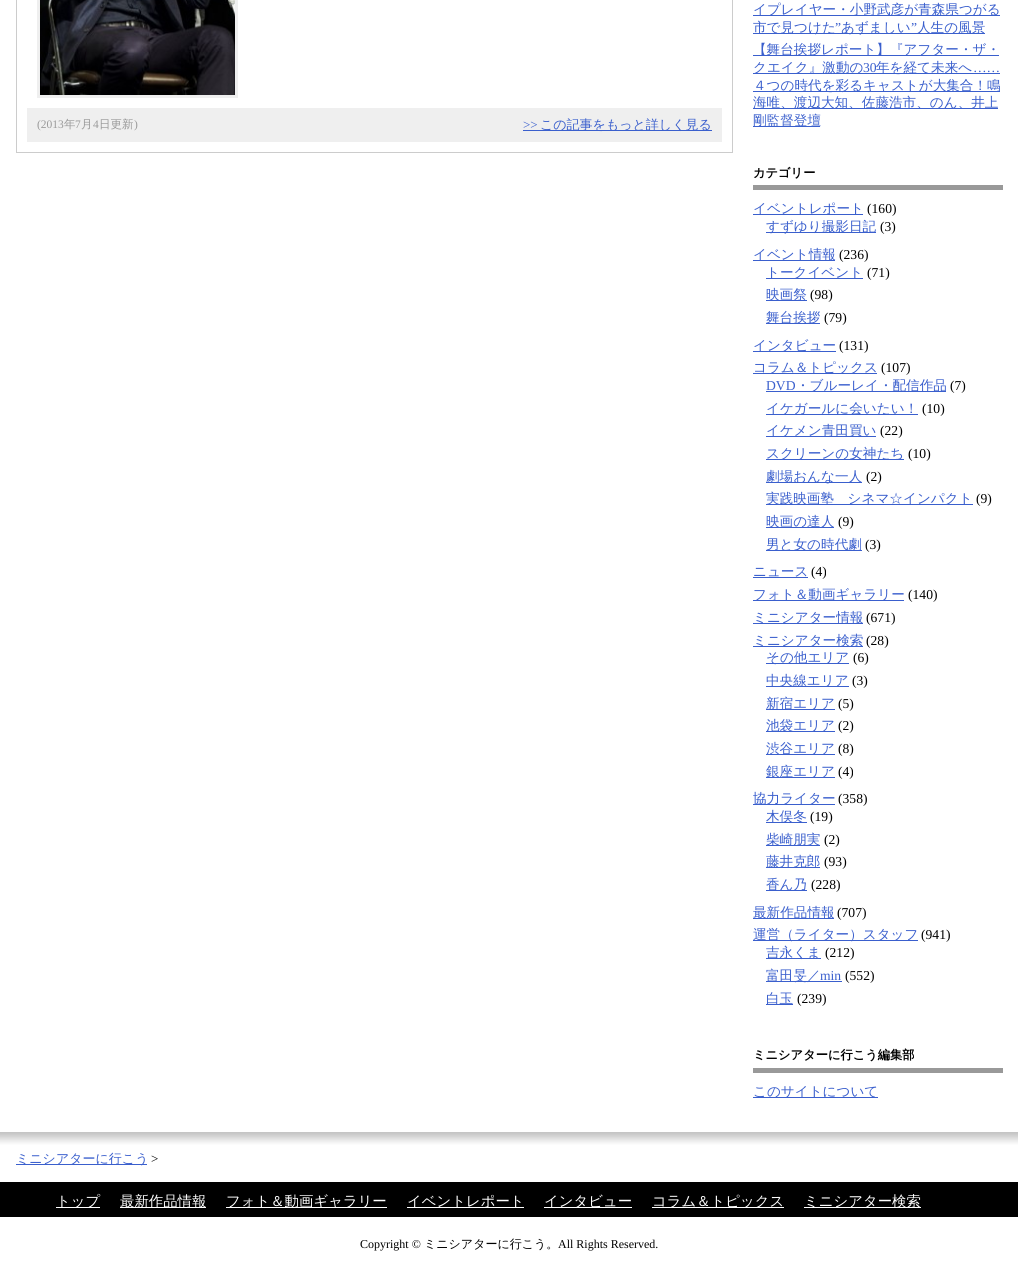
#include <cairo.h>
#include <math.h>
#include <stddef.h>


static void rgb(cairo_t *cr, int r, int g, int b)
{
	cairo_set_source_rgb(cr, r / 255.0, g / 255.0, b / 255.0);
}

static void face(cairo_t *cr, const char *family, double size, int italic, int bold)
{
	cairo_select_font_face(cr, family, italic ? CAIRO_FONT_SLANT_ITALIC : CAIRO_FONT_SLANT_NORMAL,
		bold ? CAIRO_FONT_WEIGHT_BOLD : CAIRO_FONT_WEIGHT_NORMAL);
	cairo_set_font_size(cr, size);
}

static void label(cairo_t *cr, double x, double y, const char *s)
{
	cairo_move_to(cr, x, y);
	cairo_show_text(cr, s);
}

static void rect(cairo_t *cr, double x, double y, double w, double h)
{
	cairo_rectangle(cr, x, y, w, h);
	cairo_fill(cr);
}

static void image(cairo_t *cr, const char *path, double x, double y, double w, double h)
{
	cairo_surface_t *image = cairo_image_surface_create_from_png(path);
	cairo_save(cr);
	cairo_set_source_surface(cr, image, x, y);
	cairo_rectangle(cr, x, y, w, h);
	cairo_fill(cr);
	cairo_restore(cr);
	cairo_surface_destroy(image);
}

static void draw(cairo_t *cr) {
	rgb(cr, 255, 255, 255);
	cairo_paint(cr);
	cairo_rectangle(cr, 16.5, -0.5, 716, 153);
	rgb(cr, 204, 204, 204);
	cairo_set_line_width(cr, 1);
	cairo_stroke(cr);
	cairo_rectangle(cr, 38.5, -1.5, 198, 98);
	rgb(cr, 239, 239, 239);
	cairo_set_line_width(cr, 3);
	cairo_stroke(cr);
	image(cr, "image0.png", 40, 0, 195, 95);
	rect(cr, 27, 108, 695, 34);
	face(cr, "Liberation Serif", 11.5, 0, 0);
	rgb(cr, 153, 153, 153);
	label(cr, 37, 128, "(2013");
	face(cr, "WenQuanYi Zen Hei Medium", 11.5, 0, 0);
	label(cr, 64, 128, "年");
	face(cr, "Liberation Serif", 11.5, 0, 0);
	label(cr, 75, 128, "7");
	face(cr, "WenQuanYi Zen Hei Medium", 11.5, 0, 0);
	label(cr, 81, 128, "月");
	face(cr, "Liberation Serif", 11.5, 0, 0);
	label(cr, 93, 128, "4");
	face(cr, "WenQuanYi Zen Hei Medium", 11.5, 0, 0);
	label(cr, 99, 128, "日更新");
	face(cr, "Liberation Serif", 11.5, 0, 0);
	label(cr, 134, 128, ")");
	face(cr, "Liberation Serif", 13, 0, 0);
	rgb(cr, 58, 95, 205);
	label(cr, 523, 129, ">>");
	rect(cr, 523, 130, 189, 1);
	face(cr, "WenQuanYi Zen Hei Medium", 13, 0, 0);
	label(cr, 540, 129, "この記事をもっと詳しく見る");
	rect(cr, 753, 15, 247, 1);
	face(cr, "WenQuanYi Zen Hei Medium", 13.6, 0, 0);
	label(cr, 753, 14, "イプレイヤー・小野武彦が青森県つがる");
	rect(cr, 753, 33, 232, 1);
	label(cr, 753, 32, "市で見つけた");
	face(cr, "Liberation Serif", 13.6, 0, 0);
	label(cr, 835, 32, "”");
	face(cr, "WenQuanYi Zen Hei Medium", 13.6, 0, 0);
	label(cr, 841, 32, "あずましい");
	face(cr, "Liberation Serif", 13.6, 0, 0);
	label(cr, 911, 32, "”");
	face(cr, "WenQuanYi Zen Hei Medium", 13.6, 0, 0);
	label(cr, 917, 32, "人生の風景");
	rect(cr, 753, 55, 246, 1);
	label(cr, 753, 54, "【舞台挨拶レポート】『アフター・ザ・");
	rect(cr, 753, 73, 247, 1);
	label(cr, 753, 72, "クエイク』激動の");
	face(cr, "Liberation Serif", 13.6, 0, 0);
	label(cr, 863, 72, "30");
	face(cr, "WenQuanYi Zen Hei Medium", 13.6, 0, 0);
	label(cr, 876, 72, "年を経て未来へ");
	face(cr, "Liberation Serif", 13.6, 0, 0);
	label(cr, 973, 72, "……");
	rect(cr, 753, 91, 247, 1);
	face(cr, "WenQuanYi Zen Hei Medium", 13.6, 0, 0);
	label(cr, 753, 90, "４つの時代を彩るキャストが大集合！鳴");
	rect(cr, 753, 108, 245, 1);
	label(cr, 753, 107, "海唯、渡辺大知、佐藤浩市、のん、井上");
	rect(cr, 753, 126, 67, 1);
	label(cr, 753, 125, "剛監督登壇");
	rgb(cr, 153, 153, 153);
	rect(cr, 753, 185, 250, 5);
	face(cr, "WenQuanYi Zen Hei", 12.25, 0, 1);
	rgb(cr, 0, 0, 0);
	label(cr, 753, 177, "カテゴリー");
	rgb(cr, 58, 95, 205);
	rect(cr, 753, 214, 110, 1);
	face(cr, "WenQuanYi Zen Hei Medium", 13.6, 0, 0);
	label(cr, 753, 213, "イベントレポート");
	face(cr, "Liberation Serif", 13.6, 0, 0);
	rgb(cr, 0, 0, 0);
	label(cr, 867, 213, "(160)");
	rgb(cr, 58, 95, 205);
	rect(cr, 766, 232, 110, 1);
	face(cr, "WenQuanYi Zen Hei Medium", 13.6, 0, 0);
	label(cr, 766, 231, "すずゆり撮影日記");
	face(cr, "Liberation Serif", 13.6, 0, 0);
	rgb(cr, 0, 0, 0);
	label(cr, 880, 231, "(3)");
	rgb(cr, 58, 95, 205);
	rect(cr, 753, 260, 82, 1);
	face(cr, "WenQuanYi Zen Hei Medium", 13.6, 0, 0);
	label(cr, 753, 259, "イベント情報");
	face(cr, "Liberation Serif", 13.6, 0, 0);
	rgb(cr, 0, 0, 0);
	label(cr, 839, 259, "(236)");
	rgb(cr, 58, 95, 205);
	rect(cr, 766, 278, 97, 1);
	face(cr, "WenQuanYi Zen Hei Medium", 13.6, 0, 0);
	label(cr, 766, 277, "トークイベント");
	face(cr, "Liberation Serif", 13.6, 0, 0);
	rgb(cr, 0, 0, 0);
	label(cr, 867, 277, "(71)");
	rgb(cr, 58, 95, 205);
	rect(cr, 766, 300, 41, 1);
	face(cr, "WenQuanYi Zen Hei Medium", 13.6, 0, 0);
	label(cr, 766, 299, "映画祭");
	face(cr, "Liberation Serif", 13.6, 0, 0);
	rgb(cr, 0, 0, 0);
	label(cr, 810, 299, "(98)");
	rgb(cr, 58, 95, 205);
	rect(cr, 766, 323, 54, 1);
	face(cr, "WenQuanYi Zen Hei Medium", 13.6, 0, 0);
	label(cr, 766, 322, "舞台挨拶");
	face(cr, "Liberation Serif", 13.6, 0, 0);
	rgb(cr, 0, 0, 0);
	label(cr, 824, 322, "(79)");
	rgb(cr, 58, 95, 205);
	rect(cr, 753, 351, 83, 1);
	face(cr, "WenQuanYi Zen Hei Medium", 13.6, 0, 0);
	label(cr, 753, 350, "インタビュー");
	face(cr, "Liberation Serif", 13.6, 0, 0);
	rgb(cr, 0, 0, 0);
	label(cr, 839, 350, "(131)");
	rgb(cr, 58, 95, 205);
	rect(cr, 753, 373, 124, 1);
	face(cr, "WenQuanYi Zen Hei Medium", 13.6, 0, 0);
	label(cr, 753, 372, "コラム＆トピックス");
	face(cr, "Liberation Serif", 13.6, 0, 0);
	rgb(cr, 0, 0, 0);
	label(cr, 881, 372, "(107)");
	rgb(cr, 58, 95, 205);
	label(cr, 766, 390, "DVD");
	rect(cr, 766, 391, 180, 1);
	face(cr, "WenQuanYi Zen Hei Medium", 13.6, 0, 0);
	label(cr, 796, 390, "・ブルーレイ・配信作品");
	face(cr, "Liberation Serif", 13.6, 0, 0);
	rgb(cr, 0, 0, 0);
	label(cr, 950, 390, "(7)");
	rgb(cr, 58, 95, 205);
	rect(cr, 766, 414, 152, 1);
	face(cr, "WenQuanYi Zen Hei Medium", 13.6, 0, 0);
	label(cr, 766, 413, "イケガールに会いたい！");
	face(cr, "Liberation Serif", 13.6, 0, 0);
	rgb(cr, 0, 0, 0);
	label(cr, 922, 413, "(10)");
	rgb(cr, 58, 95, 205);
	rect(cr, 766, 436, 110, 1);
	face(cr, "WenQuanYi Zen Hei Medium", 13.6, 0, 0);
	label(cr, 766, 435, "イケメン青田買い");
	face(cr, "Liberation Serif", 13.6, 0, 0);
	rgb(cr, 0, 0, 0);
	label(cr, 880, 435, "(22)");
	rgb(cr, 58, 95, 205);
	rect(cr, 766, 459, 138, 1);
	face(cr, "WenQuanYi Zen Hei Medium", 13.6, 0, 0);
	label(cr, 766, 458, "スクリーンの女神たち");
	face(cr, "Liberation Serif", 13.6, 0, 0);
	rgb(cr, 0, 0, 0);
	label(cr, 908, 458, "(10)");
	rgb(cr, 58, 95, 205);
	rect(cr, 766, 482, 96, 1);
	face(cr, "WenQuanYi Zen Hei Medium", 13.6, 0, 0);
	label(cr, 766, 481, "劇場おんな一人");
	face(cr, "Liberation Serif", 13.6, 0, 0);
	rgb(cr, 0, 0, 0);
	label(cr, 866, 481, "(2)");
	rgb(cr, 58, 95, 205);
	rect(cr, 766, 504, 207, 1);
	face(cr, "WenQuanYi Zen Hei Medium", 13.6, 0, 0);
	label(cr, 766, 503, "実践映画塾　シネマ☆インパクト");
	face(cr, "Liberation Serif", 13.6, 0, 0);
	rgb(cr, 0, 0, 0);
	label(cr, 976, 503, "(9)");
	rgb(cr, 58, 95, 205);
	rect(cr, 766, 527, 68, 1);
	face(cr, "WenQuanYi Zen Hei Medium", 13.6, 0, 0);
	label(cr, 766, 526, "映画の達人");
	face(cr, "Liberation Serif", 13.6, 0, 0);
	rgb(cr, 0, 0, 0);
	label(cr, 838, 526, "(9)");
	rgb(cr, 58, 95, 205);
	rect(cr, 766, 550, 96, 1);
	face(cr, "WenQuanYi Zen Hei Medium", 13.6, 0, 0);
	label(cr, 766, 549, "男と女の時代劇");
	face(cr, "Liberation Serif", 13.6, 0, 0);
	rgb(cr, 0, 0, 0);
	label(cr, 865, 549, "(3)");
	face(cr, "WenQuanYi Zen Hei Medium", 13.6, 0, 0);
	rgb(cr, 58, 95, 205);
	label(cr, 753, 576, "ニュース");
	rect(cr, 753, 577, 55, 1);
	face(cr, "Liberation Serif", 13.6, 0, 0);
	rgb(cr, 0, 0, 0);
	label(cr, 811, 576, "(4)");
	rgb(cr, 58, 95, 205);
	rect(cr, 753, 600, 151, 1);
	face(cr, "WenQuanYi Zen Hei Medium", 13.6, 0, 0);
	label(cr, 753, 599, "フォト＆動画ギャラリー");
	face(cr, "Liberation Serif", 13.6, 0, 0);
	rgb(cr, 0, 0, 0);
	label(cr, 908, 599, "(140)");
	rgb(cr, 58, 95, 205);
	rect(cr, 753, 623, 110, 1);
	face(cr, "WenQuanYi Zen Hei Medium", 13.6, 0, 0);
	label(cr, 753, 622, "ミニシアター情報");
	face(cr, "Liberation Serif", 13.6, 0, 0);
	rgb(cr, 0, 0, 0);
	label(cr, 866, 622, "(671)");
	rgb(cr, 58, 95, 205);
	rect(cr, 753, 646, 110, 1);
	face(cr, "WenQuanYi Zen Hei Medium", 13.6, 0, 0);
	label(cr, 753, 645, "ミニシアター検索");
	face(cr, "Liberation Serif", 13.6, 0, 0);
	rgb(cr, 0, 0, 0);
	label(cr, 866, 645, "(28)");
	rgb(cr, 58, 95, 205);
	rect(cr, 766, 663, 83, 1);
	face(cr, "WenQuanYi Zen Hei Medium", 13.6, 0, 0);
	label(cr, 766, 662, "その他エリア");
	face(cr, "Liberation Serif", 13.6, 0, 0);
	rgb(cr, 0, 0, 0);
	label(cr, 853, 662, "(6)");
	rgb(cr, 58, 95, 205);
	rect(cr, 766, 686, 83, 1);
	face(cr, "WenQuanYi Zen Hei Medium", 13.6, 0, 0);
	label(cr, 766, 685, "中央線エリア");
	face(cr, "Liberation Serif", 13.6, 0, 0);
	rgb(cr, 0, 0, 0);
	label(cr, 852, 685, "(3)");
	rgb(cr, 58, 95, 205);
	rect(cr, 766, 709, 69, 1);
	face(cr, "WenQuanYi Zen Hei Medium", 13.6, 0, 0);
	label(cr, 766, 708, "新宿エリア");
	face(cr, "Liberation Serif", 13.6, 0, 0);
	rgb(cr, 0, 0, 0);
	label(cr, 838, 708, "(5)");
	rgb(cr, 58, 95, 205);
	rect(cr, 766, 731, 69, 1);
	face(cr, "WenQuanYi Zen Hei Medium", 13.6, 0, 0);
	label(cr, 766, 730, "池袋エリア");
	face(cr, "Liberation Serif", 13.6, 0, 0);
	rgb(cr, 0, 0, 0);
	label(cr, 838, 730, "(2)");
	rgb(cr, 58, 95, 205);
	rect(cr, 766, 754, 69, 1);
	face(cr, "WenQuanYi Zen Hei Medium", 13.6, 0, 0);
	label(cr, 766, 753, "渋谷エリア");
	face(cr, "Liberation Serif", 13.6, 0, 0);
	rgb(cr, 0, 0, 0);
	label(cr, 838, 753, "(8)");
	rgb(cr, 58, 95, 205);
	rect(cr, 766, 777, 69, 1);
	face(cr, "WenQuanYi Zen Hei Medium", 13.6, 0, 0);
	label(cr, 766, 776, "銀座エリア");
	face(cr, "Liberation Serif", 13.6, 0, 0);
	rgb(cr, 0, 0, 0);
	label(cr, 838, 776, "(4)");
	rgb(cr, 58, 95, 205);
	rect(cr, 753, 804, 82, 1);
	face(cr, "WenQuanYi Zen Hei Medium", 13.6, 0, 0);
	label(cr, 753, 803, "協力ライター");
	face(cr, "Liberation Serif", 13.6, 0, 0);
	rgb(cr, 0, 0, 0);
	label(cr, 838, 803, "(358)");
	rgb(cr, 58, 95, 205);
	rect(cr, 766, 822, 41, 1);
	face(cr, "WenQuanYi Zen Hei Medium", 13.6, 0, 0);
	label(cr, 766, 821, "木俣冬");
	face(cr, "Liberation Serif", 13.6, 0, 0);
	rgb(cr, 0, 0, 0);
	label(cr, 810, 821, "(19)");
	rgb(cr, 58, 95, 205);
	rect(cr, 766, 845, 54, 1);
	face(cr, "WenQuanYi Zen Hei Medium", 13.6, 0, 0);
	label(cr, 766, 844, "柴崎朋実");
	face(cr, "Liberation Serif", 13.6, 0, 0);
	rgb(cr, 0, 0, 0);
	label(cr, 824, 844, "(2)");
	rgb(cr, 58, 95, 205);
	rect(cr, 766, 867, 54, 1);
	face(cr, "WenQuanYi Zen Hei Medium", 13.6, 0, 0);
	label(cr, 766, 866, "藤井克郎");
	face(cr, "Liberation Serif", 13.6, 0, 0);
	rgb(cr, 0, 0, 0);
	label(cr, 824, 866, "(93)");
	rgb(cr, 58, 95, 205);
	rect(cr, 766, 890, 41, 1);
	face(cr, "WenQuanYi Zen Hei Medium", 13.6, 0, 0);
	label(cr, 766, 889, "香ん乃");
	face(cr, "Liberation Serif", 13.6, 0, 0);
	rgb(cr, 0, 0, 0);
	label(cr, 811, 889, "(228)");
	rgb(cr, 58, 95, 205);
	rect(cr, 753, 918, 81, 1);
	face(cr, "WenQuanYi Zen Hei Medium", 13.6, 0, 0);
	label(cr, 753, 917, "最新作品情報");
	face(cr, "Liberation Serif", 13.6, 0, 0);
	rgb(cr, 0, 0, 0);
	label(cr, 837, 917, "(707)");
	rgb(cr, 58, 95, 205);
	rect(cr, 753, 940, 165, 1);
	face(cr, "WenQuanYi Zen Hei Medium", 13.6, 0, 0);
	label(cr, 753, 939, "運営（ライター）スタッフ");
	face(cr, "Liberation Serif", 13.6, 0, 0);
	rgb(cr, 0, 0, 0);
	label(cr, 921, 939, "(941)");
	rgb(cr, 58, 95, 205);
	rect(cr, 766, 958, 55, 1);
	face(cr, "WenQuanYi Zen Hei Medium", 13.6, 0, 0);
	label(cr, 766, 957, "吉永くま");
	face(cr, "Liberation Serif", 13.6, 0, 0);
	rgb(cr, 0, 0, 0);
	label(cr, 825, 957, "(212)");
	rgb(cr, 58, 95, 205);
	rect(cr, 766, 981, 76, 1);
	face(cr, "WenQuanYi Zen Hei Medium", 13.6, 0, 0);
	label(cr, 766, 980, "富田旻／");
	face(cr, "Liberation Serif", 13.6, 0, 0);
	label(cr, 820, 980, "min");
	rgb(cr, 0, 0, 0);
	label(cr, 845, 980, "(552)");
	rgb(cr, 58, 95, 205);
	rect(cr, 766, 1004, 27, 1);
	face(cr, "WenQuanYi Zen Hei Medium", 13.6, 0, 0);
	label(cr, 766, 1003, "白玉");
	face(cr, "Liberation Serif", 13.6, 0, 0);
	rgb(cr, 0, 0, 0);
	label(cr, 797, 1003, "(239)");
	rgb(cr, 153, 153, 153);
	rect(cr, 753, 1068, 250, 5);
	face(cr, "WenQuanYi Zen Hei", 12.25, 0, 1);
	rgb(cr, 0, 0, 0);
	label(cr, 753, 1059, "ミニシアターに行こう編集部");
	rgb(cr, 58, 95, 205);
	rect(cr, 753, 1097, 125, 1);
	face(cr, "WenQuanYi Zen Hei Medium", 13.6, 0, 0);
	label(cr, 753, 1096, "このサイトについて");
	image(cr, "image1.png", 0, 1131, 1018, 35);
	rect(cr, 16, 1164, 131, 1);
	face(cr, "WenQuanYi Zen Hei Medium", 13, 0, 0);
	label(cr, 16, 1163, "ミニシアターに行こう");
	face(cr, "Liberation Serif", 13, 0, 0);
	rgb(cr, 0, 0, 0);
	label(cr, 151, 1163, ">");
	rect(cr, 0, 1182, 1018, 35);
	rgb(cr, 255, 255, 255);
	rect(cr, 56, 1207, 44, 1);
	face(cr, "WenQuanYi Zen Hei Medium", 14.4, 0, 0);
	label(cr, 56, 1206, "トップ");
	rect(cr, 120, 1207, 86, 1);
	label(cr, 120, 1206, "最新作品情報");
	rect(cr, 226, 1207, 161, 1);
	label(cr, 226, 1206, "フォト＆動画ギャラリー");
	rect(cr, 407, 1207, 117, 1);
	label(cr, 407, 1206, "イベントレポート");
	rect(cr, 544, 1207, 88, 1);
	label(cr, 544, 1206, "インタビュー");
	rect(cr, 652, 1207, 132, 1);
	label(cr, 652, 1206, "コラム＆トピックス");
	rect(cr, 804, 1207, 117, 1);
	label(cr, 804, 1206, "ミニシアター検索");
	face(cr, "Liberation Serif", 12, 0, 0);
	rgb(cr, 0, 0, 0);
	label(cr, 360, 1248, "Copyright ©");
	face(cr, "WenQuanYi Zen Hei Medium", 12, 0, 0);
	label(cr, 424, 1248, "ミニシアターに行こう。");
	face(cr, "Liberation Serif", 12, 0, 0);
	label(cr, 558, 1248, "All Rights Reserved.");
}

int main(void) {
	cairo_surface_t *surface = cairo_image_surface_create(CAIRO_FORMAT_RGB24, 1018, 1268);
	cairo_t *cr = cairo_create(surface);
	cairo_font_options_t *options = cairo_font_options_create();
	cairo_font_options_set_hint_metrics(options, CAIRO_HINT_METRICS_OFF);
	cairo_font_options_set_hint_style(options, CAIRO_HINT_STYLE_NONE);
	cairo_set_font_options(cr, options);
	cairo_set_miter_limit(cr, 4);
	draw(cr);
	cairo_surface_write_to_png(surface, "render.png");
	cairo_font_options_destroy(options);
	cairo_destroy(cr);
	cairo_surface_destroy(surface);
	return 0;
}
